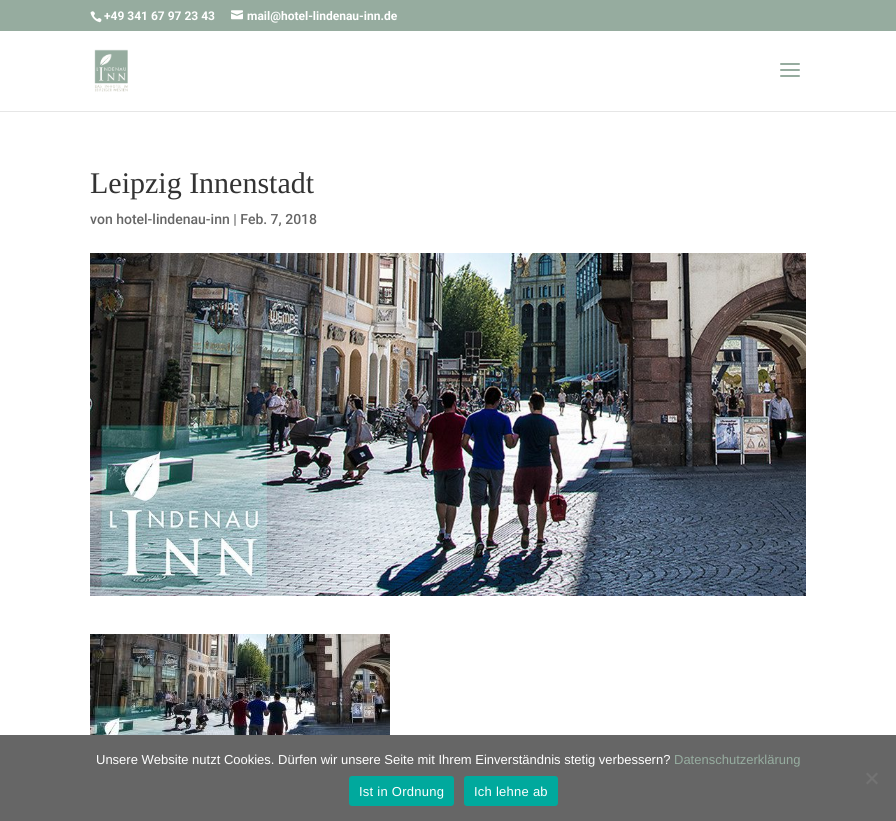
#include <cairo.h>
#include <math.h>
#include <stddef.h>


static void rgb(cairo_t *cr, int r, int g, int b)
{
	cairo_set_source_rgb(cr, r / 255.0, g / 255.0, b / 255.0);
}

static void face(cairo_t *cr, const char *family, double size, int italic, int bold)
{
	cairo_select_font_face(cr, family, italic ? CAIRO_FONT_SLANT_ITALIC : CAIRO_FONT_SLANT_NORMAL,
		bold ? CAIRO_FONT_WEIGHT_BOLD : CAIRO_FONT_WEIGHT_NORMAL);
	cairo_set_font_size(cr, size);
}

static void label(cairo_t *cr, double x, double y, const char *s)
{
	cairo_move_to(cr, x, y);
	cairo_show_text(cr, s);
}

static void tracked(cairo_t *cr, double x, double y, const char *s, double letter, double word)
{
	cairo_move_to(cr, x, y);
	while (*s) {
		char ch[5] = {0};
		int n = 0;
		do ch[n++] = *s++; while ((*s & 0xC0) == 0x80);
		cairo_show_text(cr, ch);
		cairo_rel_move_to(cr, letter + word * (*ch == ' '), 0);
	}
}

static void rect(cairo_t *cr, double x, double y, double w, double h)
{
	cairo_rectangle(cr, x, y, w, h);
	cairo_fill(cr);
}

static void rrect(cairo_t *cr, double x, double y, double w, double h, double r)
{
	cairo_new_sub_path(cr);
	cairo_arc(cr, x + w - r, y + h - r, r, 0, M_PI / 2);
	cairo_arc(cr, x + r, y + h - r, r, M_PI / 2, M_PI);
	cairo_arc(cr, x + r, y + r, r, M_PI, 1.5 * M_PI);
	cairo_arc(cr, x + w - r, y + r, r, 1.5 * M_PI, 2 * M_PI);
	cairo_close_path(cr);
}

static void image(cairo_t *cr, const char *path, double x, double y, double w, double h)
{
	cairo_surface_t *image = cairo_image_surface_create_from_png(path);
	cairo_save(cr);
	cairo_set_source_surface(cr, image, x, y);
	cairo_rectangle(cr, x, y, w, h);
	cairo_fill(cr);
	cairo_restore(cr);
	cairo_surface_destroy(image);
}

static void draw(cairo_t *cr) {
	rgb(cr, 255, 255, 255);
	cairo_paint(cr);
	rgb(cr, 150, 172, 159);
	rect(cr, 0, 0, 896, 31);
	image(cr, "image0.png", 90, 11, 12, 12);
	face(cr, "Roboto", 12, 0, 1);
	rgb(cr, 255, 255, 255);
	label(cr, 104, 20, "+49 341 67 97 23 43");
	image(cr, "image1.png", 231, 10, 12, 10);
	label(cr, 247, 20, "mail@hotel-lindenau-inn.de");
	rgb(cr, 230, 230, 230);
	rect(cr, 0, 111, 896, 1);
	image(cr, "image2.png", 94, 49, 34, 43);
	image(cr, "image3.png", 780, 63, 20, 14);
	face(cr, "Liberation Serif", 30, 0, 0);
	rgb(cr, 51, 51, 51);
	label(cr, 90, 193, "Leipzig Innenstadt");
	face(cr, "Roboto Medium", 14, 0, 0);
	rgb(cr, 102, 102, 102);
	label(cr, 90, 224, "von hotel-lindenau-inn | Feb. 7, 2018");
	image(cr, "image4.png", 90, 253, 716, 343);
	image(cr, "image5.png", 90, 634, 300, 101);
	rect(cr, 0, 735, 896, 86);
	face(cr, "Liberation Sans", 13, 0, 0);
	rgb(cr, 255, 255, 255);
	label(cr, 96, 764, "Unsere Website nutzt Cookies. Dürfen wir unsere Seite mit Ihrem Einverständnis stetig verbessern?");
	rgb(cr, 150, 172, 159);
	label(cr, 674, 764, "Datenschutzerklärung");
	rgb(cr, 115, 115, 115);
	cairo_new_path(cr);
	cairo_move_to(cr, 876.5, 772.5);
	cairo_line_to(cr, 878, 774);
	cairo_line_to(cr, 867.5, 784.5);
	cairo_line_to(cr, 866, 783);
	cairo_close_path(cr);
	cairo_fill(cr);
	cairo_new_path(cr);
	cairo_move_to(cr, 866, 774);
	cairo_line_to(cr, 867.5, 772.5);
	cairo_line_to(cr, 878, 783);
	cairo_line_to(cr, 876.5, 784.5);
	cairo_close_path(cr);
	cairo_fill(cr);
	rgb(cr, 0, 169, 157);
	rrect(cr, 349, 776, 105, 30, 3);
	cairo_fill(cr);
	rgb(cr, 255, 255, 255);
	tracked(cr, 359, 796, "Ist in Ordnung", 0.25, 0);
	rgb(cr, 0, 169, 157);
	rrect(cr, 464, 776, 94, 30, 3);
	cairo_fill(cr);
	rgb(cr, 255, 255, 255);
	tracked(cr, 474, 796, "Ich lehne ab", 0.25, 0);
}

int main(void) {
	cairo_surface_t *surface = cairo_image_surface_create(CAIRO_FORMAT_RGB24, 896, 821);
	cairo_t *cr = cairo_create(surface);
	cairo_font_options_t *options = cairo_font_options_create();
	cairo_font_options_set_hint_metrics(options, CAIRO_HINT_METRICS_OFF);
	cairo_font_options_set_hint_style(options, CAIRO_HINT_STYLE_NONE);
	cairo_set_font_options(cr, options);
	cairo_set_miter_limit(cr, 4);
	draw(cr);
	cairo_surface_write_to_png(surface, "render.png");
	cairo_font_options_destroy(options);
	cairo_destroy(cr);
	cairo_surface_destroy(surface);
	return 0;
}
